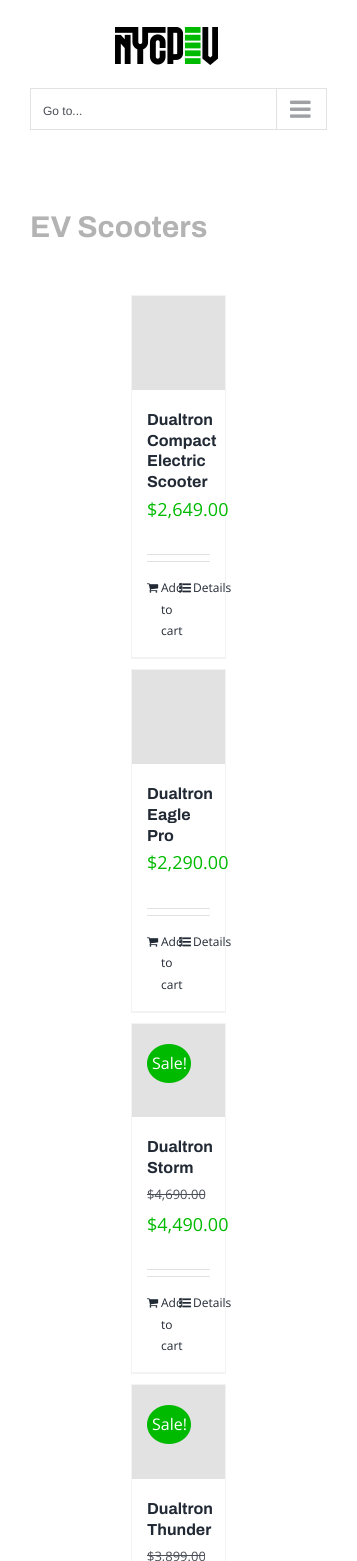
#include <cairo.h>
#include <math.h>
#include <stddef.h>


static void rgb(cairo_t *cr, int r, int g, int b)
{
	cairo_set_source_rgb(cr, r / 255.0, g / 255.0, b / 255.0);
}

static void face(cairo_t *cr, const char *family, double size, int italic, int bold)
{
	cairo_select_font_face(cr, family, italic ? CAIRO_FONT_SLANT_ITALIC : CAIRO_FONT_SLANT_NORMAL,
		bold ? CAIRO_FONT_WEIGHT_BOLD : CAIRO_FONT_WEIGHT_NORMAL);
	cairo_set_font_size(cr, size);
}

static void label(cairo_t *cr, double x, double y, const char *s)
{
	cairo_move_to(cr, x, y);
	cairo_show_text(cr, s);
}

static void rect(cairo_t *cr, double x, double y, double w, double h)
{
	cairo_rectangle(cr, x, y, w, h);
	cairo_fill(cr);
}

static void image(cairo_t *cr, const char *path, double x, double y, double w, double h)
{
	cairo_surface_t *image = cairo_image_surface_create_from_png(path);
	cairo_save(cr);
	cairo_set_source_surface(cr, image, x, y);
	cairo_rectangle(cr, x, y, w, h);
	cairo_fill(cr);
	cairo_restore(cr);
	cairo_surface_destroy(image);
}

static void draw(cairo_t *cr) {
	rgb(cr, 255, 255, 255);
	cairo_paint(cr);
	image(cr, "image0.png", 115, 27, 103, 38);
	cairo_rectangle(cr, 30.5, 88.5, 296, 41);
	rgb(cr, 226, 226, 226);
	cairo_set_line_width(cr, 1);
	cairo_stroke(cr);
	face(cr, "Liberation Sans", 12, 0, 0);
	rgb(cr, 74, 78, 87);
	label(cr, 43, 115, "Go to...");
	rgb(cr, 226, 226, 226);
	rect(cr, 276, 89, 1, 40);
	image(cr, "image1.png", 290, 100, 21, 18);
	face(cr, "Archivo", 30, 0, 1);
	rgb(cr, 179, 179, 179);
	label(cr, 30, 237, "EV Scooters");
	rgb(cr, 242, 243, 245);
	rect(cr, 131, 295, 95, 1);
	rect(cr, 225, 295, 1, 364);
	rect(cr, 131, 657, 95, 2);
	rect(cr, 131, 295, 1, 364);
	rgb(cr, 226, 226, 226);
	rect(cr, 132, 296, 93, 94);
	face(cr, "Archivo", 16, 0, 1);
	rgb(cr, 33, 41, 52);
	label(cr, 147, 425, "Dualtron");
	label(cr, 147, 446, "Compact");
	label(cr, 147, 466, "Electric");
	label(cr, 147, 487, "Scooter");
	face(cr, "Open Sans", 18, 0, 0);
	rgb(cr, 0, 186, 0);
	label(cr, 147, 516, "$2,649.00");
	rgb(cr, 226, 226, 226);
	rect(cr, 147, 554, 63, 1);
	rect(cr, 147, 561, 63, 1);
	image(cr, "image2.png", 147, 583, 12, 10);
	face(cr, "Open Sans", 12, 0, 0);
	rgb(cr, 33, 41, 52);
	label(cr, 161, 592, "Add");
	label(cr, 161, 614, "to");
	label(cr, 161, 635, "cart");
	image(cr, "image3.png", 179, 583, 12, 10);
	label(cr, 193, 592, "Details");
	rgb(cr, 242, 243, 245);
	rect(cr, 131, 669, 95, 1);
	rect(cr, 225, 669, 1, 344);
	rect(cr, 131, 1011, 95, 2);
	rect(cr, 131, 669, 1, 344);
	rgb(cr, 226, 226, 226);
	rect(cr, 132, 670, 93, 94);
	face(cr, "Archivo", 16, 0, 1);
	rgb(cr, 33, 41, 52);
	label(cr, 147, 799, "Dualtron");
	label(cr, 147, 820, "Eagle");
	label(cr, 147, 841, "Pro");
	face(cr, "Open Sans", 18, 0, 0);
	rgb(cr, 0, 186, 0);
	label(cr, 147, 869, "$2,290.00");
	rgb(cr, 226, 226, 226);
	rect(cr, 147, 908, 63, 1);
	rect(cr, 147, 915, 63, 1);
	image(cr, "image2.png", 147, 937, 12, 10);
	face(cr, "Open Sans", 12, 0, 0);
	rgb(cr, 33, 41, 52);
	label(cr, 161, 946, "Add");
	label(cr, 161, 967, "to");
	label(cr, 161, 989, "cart");
	image(cr, "image3.png", 179, 937, 12, 10);
	label(cr, 193, 946, "Details");
	rgb(cr, 242, 243, 245);
	rect(cr, 131, 1023, 95, 1);
	rect(cr, 225, 1023, 1, 351);
	rect(cr, 131, 1372, 95, 2);
	rect(cr, 131, 1023, 1, 351);
	rgb(cr, 226, 226, 226);
	rect(cr, 132, 1024, 93, 93);
	rgb(cr, 0, 186, 0);
	cairo_new_path(cr);
	cairo_move_to(cr, 169, 1044);
	cairo_curve_to(cr, 181, 1044, 191, 1052.5, 191, 1063.5);
	cairo_curve_to(cr, 191, 1074.5, 181, 1083, 169, 1083);
	cairo_curve_to(cr, 157, 1083, 147, 1074.5, 147, 1063.5);
	cairo_curve_to(cr, 147, 1052.5, 157, 1044, 169, 1044);
	cairo_close_path(cr);
	cairo_fill(cr);
	face(cr, "Open Sans", 16, 0, 0);
	rgb(cr, 255, 255, 255);
	label(cr, 152, 1069, "Sale!");
	face(cr, "Archivo", 16, 0, 1);
	rgb(cr, 33, 41, 52);
	label(cr, 147, 1152, "Dualtron");
	label(cr, 147, 1173, "Storm");
	face(cr, "Open Sans", 13, 0, 0);
	rgb(cr, 74, 78, 87);
	label(cr, 147, 1199, "$4,690.00");
	rect(cr, 147, 1194, 58, 1);
	face(cr, "Open Sans", 18, 0, 0);
	rgb(cr, 0, 186, 0);
	label(cr, 147, 1231, "$4,490.00");
	rgb(cr, 226, 226, 226);
	rect(cr, 147, 1269, 63, 1);
	rect(cr, 147, 1276, 63, 1);
	image(cr, "image2.png", 147, 1298, 12, 10);
	face(cr, "Open Sans", 12, 0, 0);
	rgb(cr, 33, 41, 52);
	label(cr, 161, 1307, "Add");
	label(cr, 161, 1329, "to");
	label(cr, 161, 1350, "cart");
	image(cr, "image3.png", 179, 1298, 12, 10);
	label(cr, 193, 1307, "Details");
	rgb(cr, 242, 243, 245);
	rect(cr, 131, 1384, 95, 1);
	rect(cr, 225, 1384, 1, 177);
	rect(cr, 131, 1384, 1, 177);
	rgb(cr, 226, 226, 226);
	rect(cr, 132, 1385, 93, 94);
	rgb(cr, 0, 186, 0);
	cairo_new_path(cr);
	cairo_move_to(cr, 169, 1405);
	cairo_curve_to(cr, 181, 1405, 191, 1413.5, 191, 1424.5);
	cairo_curve_to(cr, 191, 1435.5, 181, 1444, 169, 1444);
	cairo_curve_to(cr, 157, 1444, 147, 1435.5, 147, 1424.5);
	cairo_curve_to(cr, 147, 1413.5, 157, 1405, 169, 1405);
	cairo_close_path(cr);
	cairo_fill(cr);
	face(cr, "Open Sans", 16, 0, 0);
	rgb(cr, 255, 255, 255);
	label(cr, 152, 1430, "Sale!");
	face(cr, "Archivo", 16, 0, 1);
	rgb(cr, 33, 41, 52);
	label(cr, 147, 1514, "Dualtron");
	label(cr, 147, 1535, "Thunder");
	face(cr, "Open Sans", 13, 0, 0);
	rgb(cr, 74, 78, 87);
	label(cr, 147, 1561, "$3,899.00");
	rect(cr, 147, 1555, 58, 1);
}

int main(void) {
	cairo_surface_t *surface = cairo_image_surface_create(CAIRO_FORMAT_RGB24, 357, 1561);
	cairo_t *cr = cairo_create(surface);
	cairo_font_options_t *options = cairo_font_options_create();
	cairo_font_options_set_hint_metrics(options, CAIRO_HINT_METRICS_OFF);
	cairo_font_options_set_hint_style(options, CAIRO_HINT_STYLE_NONE);
	cairo_set_font_options(cr, options);
	cairo_set_miter_limit(cr, 4);
	draw(cr);
	cairo_surface_write_to_png(surface, "render.png");
	cairo_font_options_destroy(options);
	cairo_destroy(cr);
	cairo_surface_destroy(surface);
	return 0;
}
